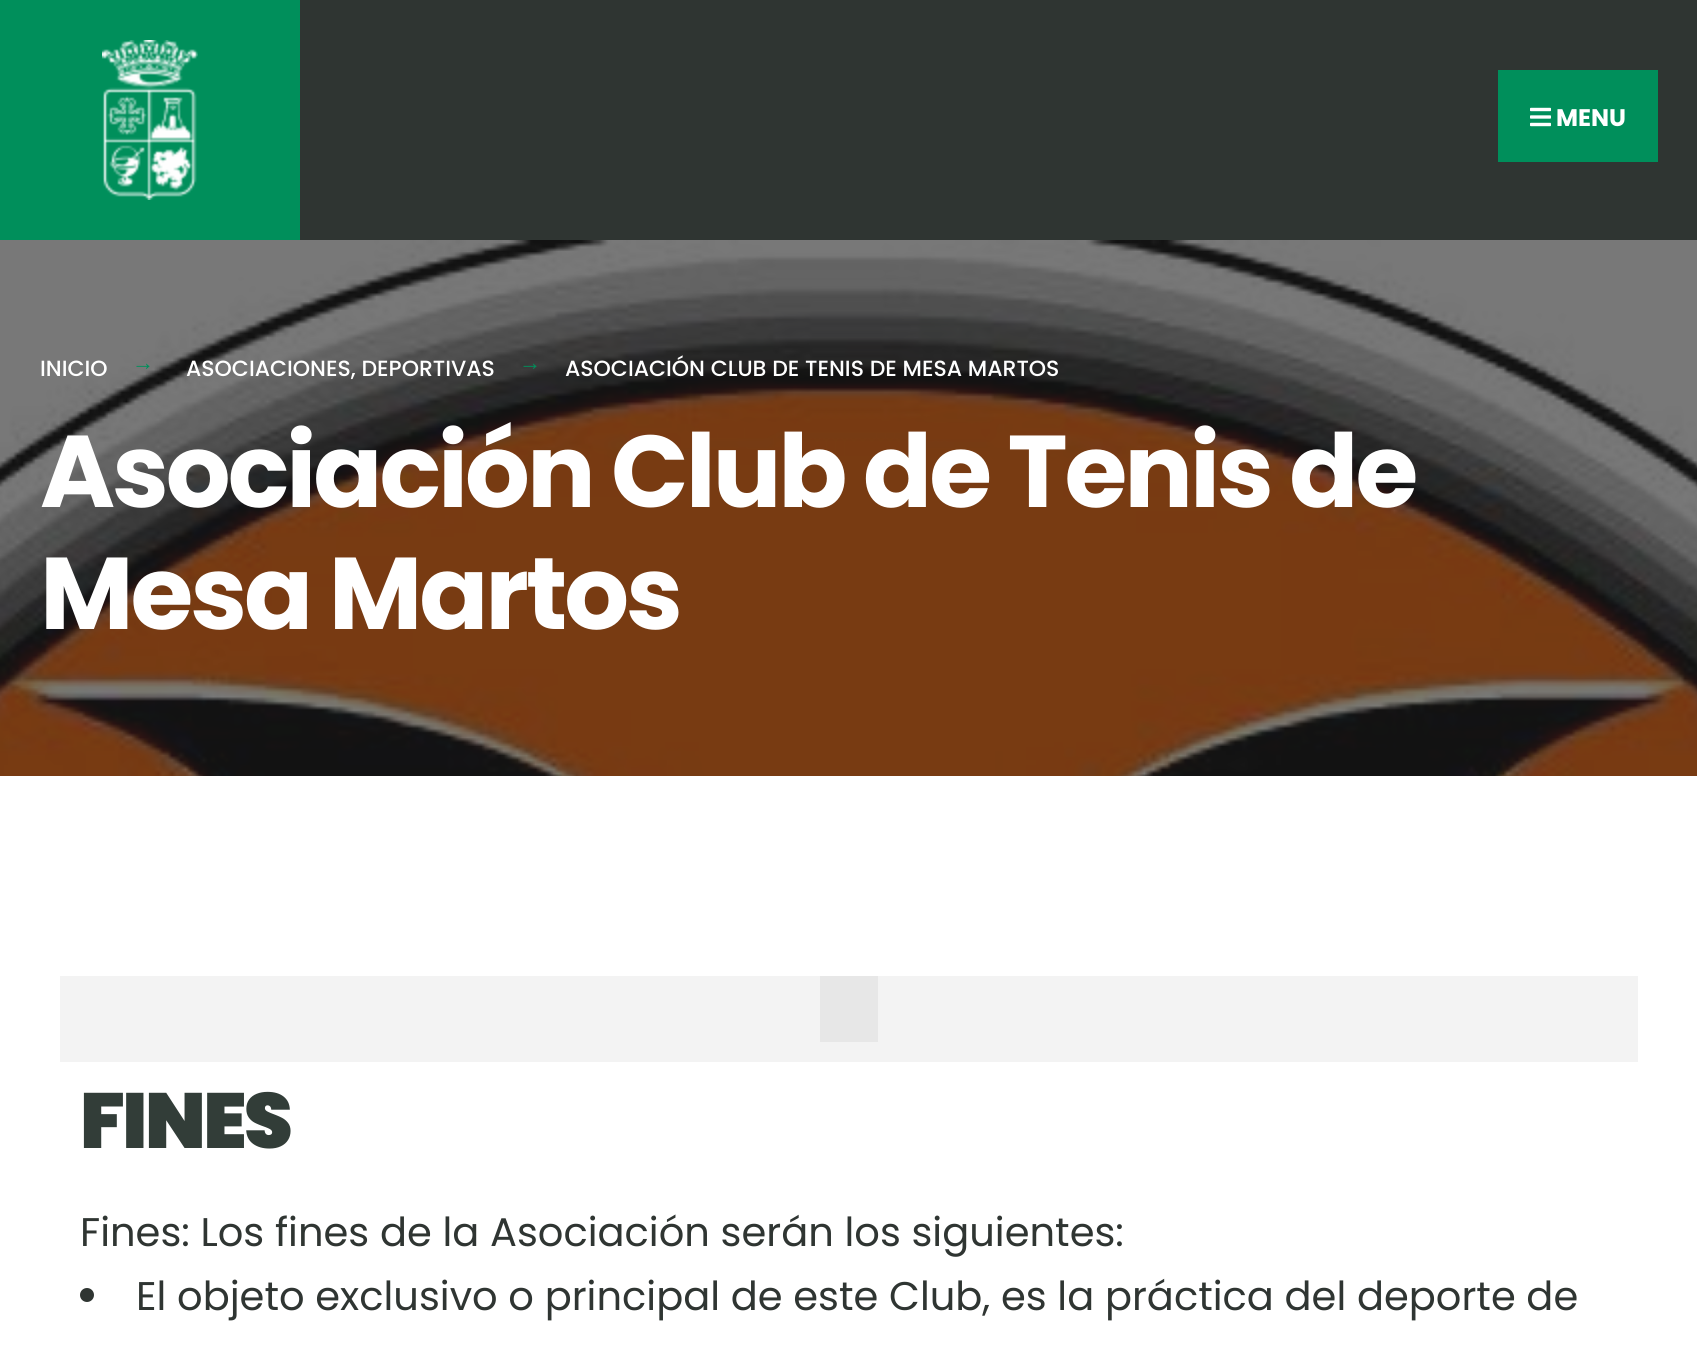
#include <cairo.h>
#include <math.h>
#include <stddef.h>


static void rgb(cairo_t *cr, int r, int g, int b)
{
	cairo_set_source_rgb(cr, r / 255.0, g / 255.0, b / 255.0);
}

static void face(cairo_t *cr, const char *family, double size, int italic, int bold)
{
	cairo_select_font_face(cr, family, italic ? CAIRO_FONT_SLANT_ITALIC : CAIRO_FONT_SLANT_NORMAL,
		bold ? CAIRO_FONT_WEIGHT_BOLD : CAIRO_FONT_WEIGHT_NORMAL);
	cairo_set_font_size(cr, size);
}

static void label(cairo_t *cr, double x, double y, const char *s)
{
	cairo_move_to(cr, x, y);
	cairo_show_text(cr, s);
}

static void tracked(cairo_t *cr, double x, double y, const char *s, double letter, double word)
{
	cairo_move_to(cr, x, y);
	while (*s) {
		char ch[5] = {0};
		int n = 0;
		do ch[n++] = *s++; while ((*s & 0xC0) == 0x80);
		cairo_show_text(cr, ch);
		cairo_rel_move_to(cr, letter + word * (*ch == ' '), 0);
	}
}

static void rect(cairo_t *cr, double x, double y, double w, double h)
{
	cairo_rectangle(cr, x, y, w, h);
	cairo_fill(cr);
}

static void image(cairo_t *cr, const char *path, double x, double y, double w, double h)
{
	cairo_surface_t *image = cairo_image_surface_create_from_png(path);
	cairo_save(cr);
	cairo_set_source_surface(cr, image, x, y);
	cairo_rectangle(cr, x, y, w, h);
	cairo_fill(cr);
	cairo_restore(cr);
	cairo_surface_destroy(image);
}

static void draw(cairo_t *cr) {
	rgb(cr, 255, 255, 255);
	cairo_paint(cr);
	rgb(cr, 47, 53, 50);
	rect(cr, 300, 0, 1397, 240);
	rgb(cr, 0, 143, 91);
	rect(cr, 0, 0, 300, 240);
	image(cr, "image0.png", 102, 40, 96, 160);
	rect(cr, 1498, 70, 160, 92);
	image(cr, "image1.png", 1530, 107, 21, 20);
	face(cr, "Poppins", 24, 0, 1);
	rgb(cr, 255, 255, 255);
	label(cr, 1556, 126, "MENU");
	rgb(cr, 30, 30, 30);
	rect(cr, 0, 240, 1697, 536);
	image(cr, "image2.png", 0, 240, 1697, 536);
	face(cr, "Poppins Medium", 22, 0, 0);
	rgb(cr, 255, 255, 255);
	label(cr, 40, 376, "INICIO");
	face(cr, "Liberation Serif", 22, 0, 0);
	rgb(cr, 0, 143, 91);
	label(cr, 132, 370, "→");
	face(cr, "Poppins Medium", 22, 0, 0);
	rgb(cr, 255, 255, 255);
	label(cr, 186, 376, "ASOCIACIONES, DEPORTIVAS");
	face(cr, "Liberation Serif", 22, 0, 0);
	rgb(cr, 0, 143, 91);
	label(cr, 519, 370, "→");
	face(cr, "Poppins Medium", 22, 0, 0);
	rgb(cr, 255, 255, 255);
	label(cr, 565, 376, "ASOCIACIÓN CLUB DE TENIS DE MESA MARTOS");
	face(cr, "Poppins", 101.9, 0, 1);
	tracked(cr, 40, 507, "Asociación Club de Tenis de", -3.05, 0);
	tracked(cr, 40, 629, "Mesa Martos", -3.05, 0);
	rgb(cr, 243, 243, 243);
	rect(cr, 60, 976, 1578, 86);
	rgb(cr, 231, 231, 231);
	rect(cr, 820, 976, 58, 66);
	face(cr, "Poppins Black", 78, 0, 0);
	rgb(cr, 50, 61, 56);
	tracked(cr, 80, 1148, "FINES", -2.5, 0);
	face(cr, "Poppins", 40, 0, 0);
	rgb(cr, 47, 53, 50);
	label(cr, 80, 1246, "Fines: Los fines de la Asociación serán los siguientes:");
	cairo_new_path(cr);
	cairo_arc(cr, 87, 1295, 7, 0, 2 * M_PI);
	cairo_fill(cr);
	label(cr, 136, 1310, "El objeto exclusivo o principal de este Club, es la práctica del deporte de");
}

int main(void) {
	cairo_surface_t *surface = cairo_image_surface_create(CAIRO_FORMAT_RGB24, 1697, 1359);
	cairo_t *cr = cairo_create(surface);
	cairo_font_options_t *options = cairo_font_options_create();
	cairo_font_options_set_hint_metrics(options, CAIRO_HINT_METRICS_OFF);
	cairo_font_options_set_hint_style(options, CAIRO_HINT_STYLE_NONE);
	cairo_set_font_options(cr, options);
	cairo_set_miter_limit(cr, 4);
	draw(cr);
	cairo_surface_write_to_png(surface, "render.png");
	cairo_font_options_destroy(options);
	cairo_destroy(cr);
	cairo_surface_destroy(surface);
	return 0;
}
